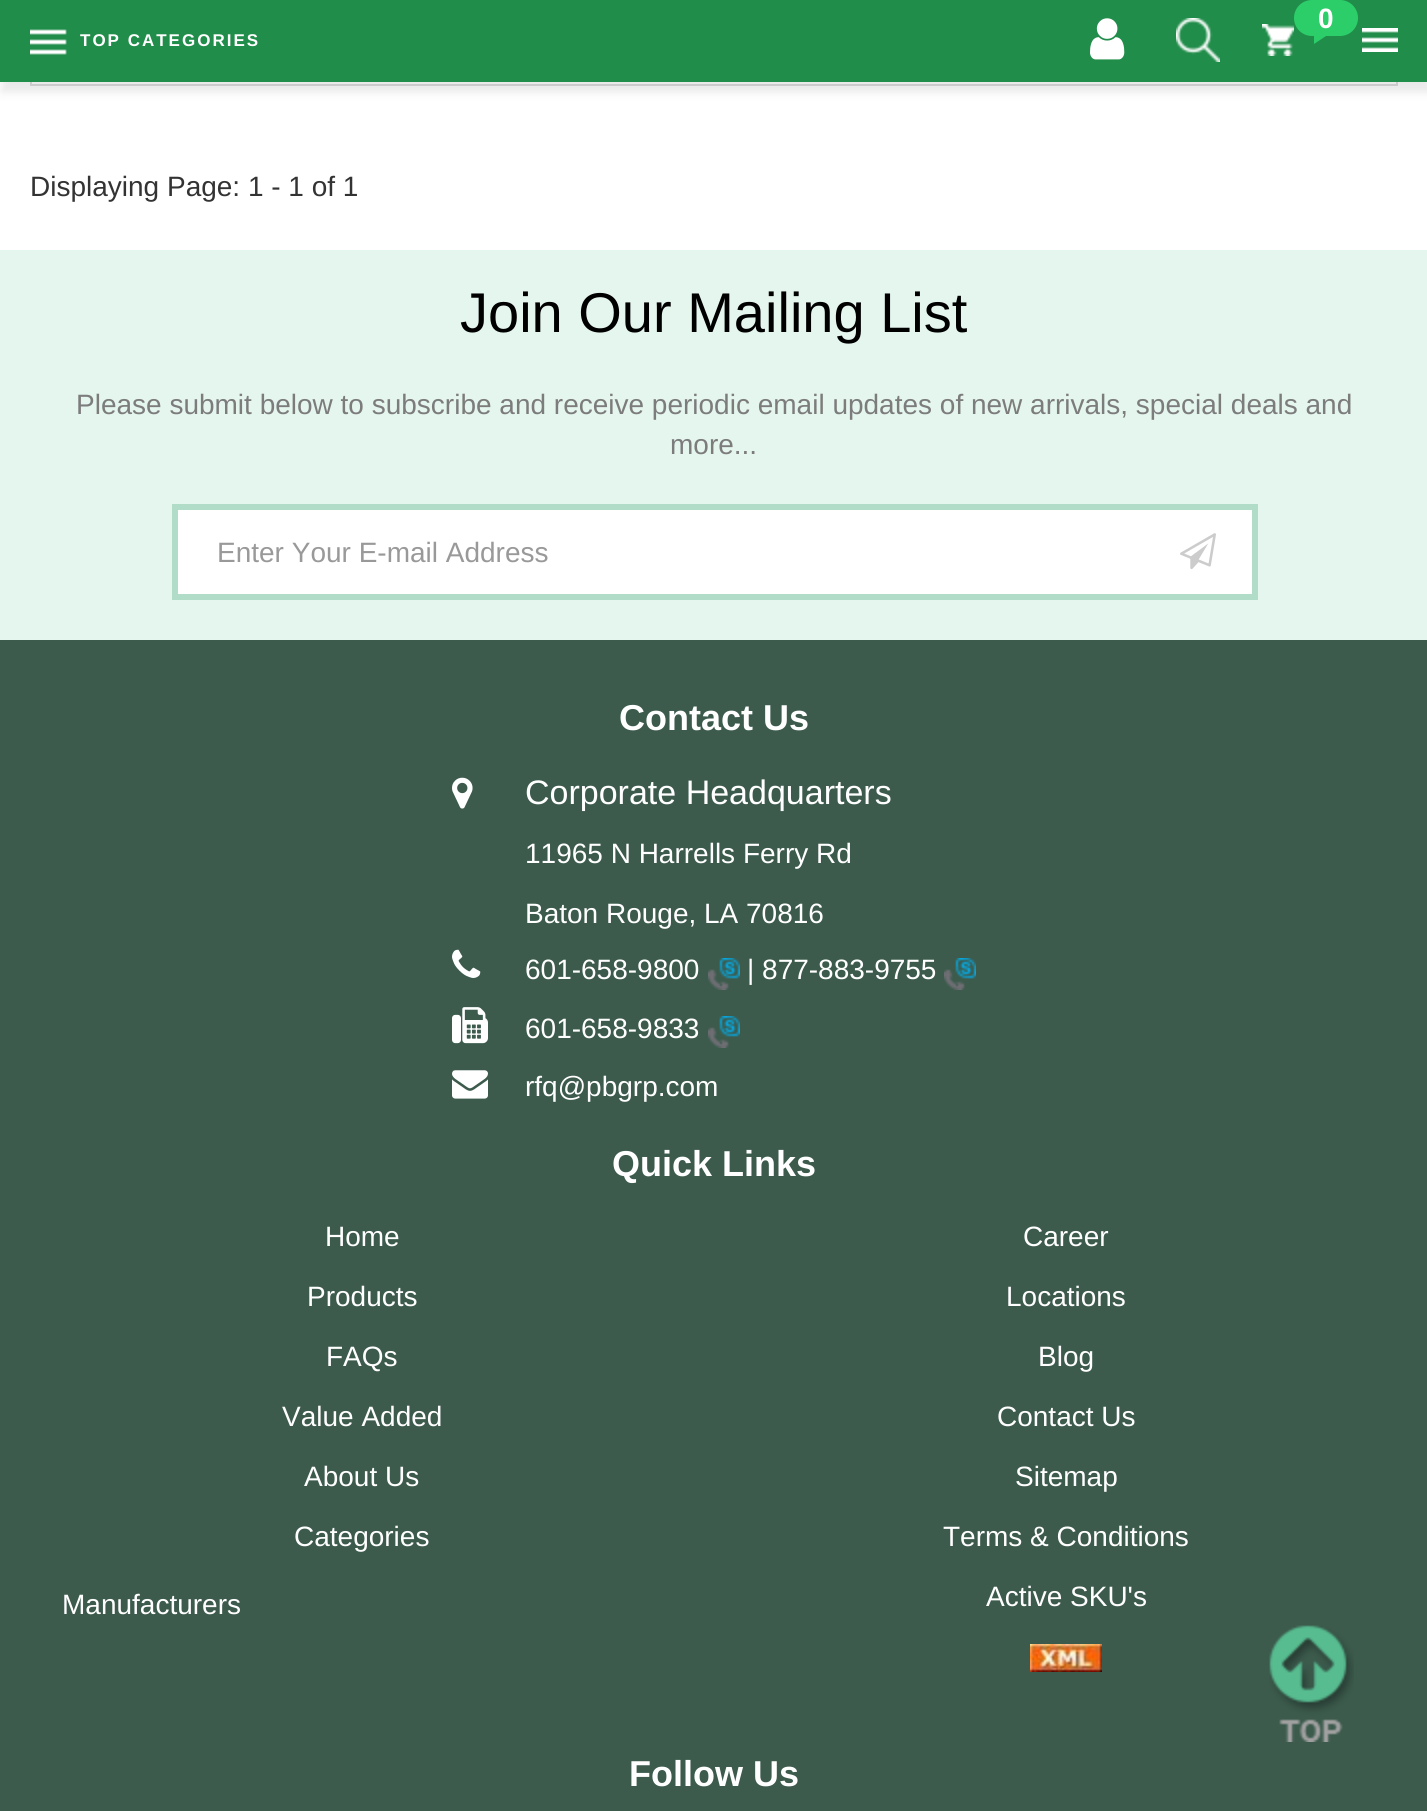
#include <cairo.h>
#include <math.h>
#include <stddef.h>


static void rgb(cairo_t *cr, int r, int g, int b)
{
	cairo_set_source_rgb(cr, r / 255.0, g / 255.0, b / 255.0);
}

static void face(cairo_t *cr, const char *family, double size, int italic, int bold)
{
	cairo_select_font_face(cr, family, italic ? CAIRO_FONT_SLANT_ITALIC : CAIRO_FONT_SLANT_NORMAL,
		bold ? CAIRO_FONT_WEIGHT_BOLD : CAIRO_FONT_WEIGHT_NORMAL);
	cairo_set_font_size(cr, size);
}

static void label(cairo_t *cr, double x, double y, const char *s)
{
	cairo_move_to(cr, x, y);
	cairo_show_text(cr, s);
}

static void tracked(cairo_t *cr, double x, double y, const char *s, double letter, double word)
{
	cairo_move_to(cr, x, y);
	while (*s) {
		char ch[5] = {0};
		int n = 0;
		do ch[n++] = *s++; while ((*s & 0xC0) == 0x80);
		cairo_show_text(cr, ch);
		cairo_rel_move_to(cr, letter + word * (*ch == ' '), 0);
	}
}

static void rect(cairo_t *cr, double x, double y, double w, double h)
{
	cairo_rectangle(cr, x, y, w, h);
	cairo_fill(cr);
}

static void rrect(cairo_t *cr, double x, double y, double w, double h, double r)
{
	cairo_new_sub_path(cr);
	cairo_arc(cr, x + w - r, y + h - r, r, 0, M_PI / 2);
	cairo_arc(cr, x + r, y + h - r, r, M_PI / 2, M_PI);
	cairo_arc(cr, x + r, y + r, r, M_PI, 1.5 * M_PI);
	cairo_arc(cr, x + w - r, y + r, r, 1.5 * M_PI, 2 * M_PI);
	cairo_close_path(cr);
}

static void soft_shadow(cairo_t *cr, double x, double y, double w, double h, double r, double blur, double alpha)
{
	cairo_push_group_with_content(cr, CAIRO_CONTENT_ALPHA);
	cairo_set_operator(cr, CAIRO_OPERATOR_SOURCE);
	for (int i = 15; i >= -15 && fmin(w, h) + blur * i / 3 > 0; i -= 2) {
		double e = blur * i / 6;
		cairo_set_source_rgba(cr, 0, 0, 0, alpha * erfc((i - 1) / 8.5) / 2);
		rrect(cr, x - e, y - e, w + 2 * e, h + 2 * e, fmax(0, fmin(r + e + blur * .6, fmin(w, h) / 2 + e)));
		cairo_fill(cr);
	}
	cairo_pattern_t *soft = cairo_pop_group(cr);
	cairo_mask(cr, soft);
	cairo_pattern_destroy(soft);
}

static void image(cairo_t *cr, const char *path, double x, double y, double w, double h)
{
	cairo_surface_t *image = cairo_image_surface_create_from_png(path);
	cairo_save(cr);
	cairo_set_source_surface(cr, image, x, y);
	cairo_rectangle(cr, x, y, w, h);
	cairo_fill(cr);
	cairo_restore(cr);
	cairo_surface_destroy(image);
}

static void draw(cairo_t *cr) {
	rgb(cr, 255, 255, 255);
	cairo_paint(cr);
	cairo_rectangle(cr, 31, -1, 1366, 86);
	rgb(cr, 221, 221, 221);
	cairo_stroke(cr);
	rgb(cr, 0, 0, 0);
	soft_shadow(cr, 2, 10, 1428, 82, 0, 5, 0.09);
	rgb(cr, 33, 141, 74);
	rect(cr, 0, 0, 1427, 82);
	image(cr, "image0.png", 30, 29, 37, 26);
	face(cr, "Liberation Sans", 17, 0, 1);
	rgb(cr, 255, 255, 255);
	tracked(cr, 80, 46, "TOP CATEGORIES", 2, 0);
	image(cr, "image1.png", 1090, 18, 35, 42);
	image(cr, "image2.png", 1176, 18, 44, 44);
	rgb(cr, 44, 206, 106);
	rrect(cr, 1294, 0, 64, 36, 18);
	cairo_fill(cr);
	face(cr, "Liberation Sans", 28, 0, 1);
	rgb(cr, 255, 255, 255);
	label(cr, 1318, 28, "0");
	rgb(cr, 44, 206, 106);
	cairo_new_path(cr);
	cairo_move_to(cr, 1314, 36);
	cairo_line_to(cr, 1326, 36);
	cairo_line_to(cr, 1314, 44);
	cairo_close_path(cr);
	cairo_fill(cr);
	image(cr, "image3.png", 1262, 24, 32, 32);
	image(cr, "image4.png", 1362, 28, 36, 24);
	face(cr, "Liberation Sans", 28, 0, 0);
	rgb(cr, 51, 51, 51);
	label(cr, 30, 196, "Displaying Page: 1 - 1 of 1");
	rgb(cr, 60, 91, 77);
	rect(cr, 0, 640, 1427, 1171);
	rgb(cr, 228, 246, 238);
	rect(cr, 0, 250, 1427, 390);
	face(cr, "Liberation Sans", 56, 0, 0);
	rgb(cr, 0, 0, 0);
	label(cr, 460, 332, "Join Our Mailing List");
	face(cr, "Liberation Sans", 28, 0, 0);
	rgb(cr, 124, 124, 124);
	label(cr, 76, 414, "Please submit below to subscribe and receive periodic email updates of new arrivals, special deals and");
	label(cr, 670, 454, "more...");
	rgb(cr, 255, 255, 255);
	cairo_rectangle(cr, 175, 507, 1080, 90);
	cairo_fill_preserve(cr);
	rgb(cr, 176, 220, 200);
	cairo_set_line_width(cr, 6);
	cairo_stroke(cr);
	rgb(cr, 153, 153, 153);
	label(cr, 217, 562, "Enter Your E-mail Address");
	image(cr, "image5.png", 1180, 533, 36, 37);
	face(cr, "Liberation Sans", 36, 0, 1);
	rgb(cr, 255, 255, 255);
	label(cr, 619, 730, "Contact Us");
	image(cr, "image6.png", 452, 777, 21, 32);
	face(cr, "Liberation Sans", 34, 0, 0);
	label(cr, 525, 804, "Corporate Headquarters");
	face(cr, "Liberation Sans", 28, 0, 0);
	label(cr, 525, 863, "11965 N Harrells Ferry Rd");
	label(cr, 525, 923, "Baton Rouge, LA 70816");
	image(cr, "image7.png", 452, 949, 29, 29);
	label(cr, 525, 979, "601-658-9800");
	image(cr, "image8.png", 708, 958, 32, 32);
	label(cr, 747, 979, "| 877-883-9755");
	image(cr, "image8.png", 944, 958, 32, 32);
	image(cr, "image9.png", 452, 1007, 36, 37);
	label(cr, 525, 1038, "601-658-9833");
	image(cr, "image8.png", 708, 1016, 32, 32);
	image(cr, "image10.png", 452, 1070, 36, 29);
	label(cr, 525, 1096, "rfq@pbgrp.com");
	face(cr, "Liberation Sans", 36, 0, 1);
	label(cr, 612, 1176, "Quick Links");
	face(cr, "Liberation Sans", 28, 0, 0);
	label(cr, 325, 1246, "Home");
	label(cr, 1023, 1246, "Career");
	label(cr, 307, 1306, "Products");
	label(cr, 1006, 1306, "Locations");
	label(cr, 326, 1366, "FAQs");
	label(cr, 1038, 1366, "Blog");
	label(cr, 282, 1426, "Value Added");
	label(cr, 997, 1426, "Contact Us");
	label(cr, 304, 1486, "About Us");
	label(cr, 1015, 1486, "Sitemap");
	label(cr, 294, 1546, "Categories");
	label(cr, 943, 1546, "Terms & Conditions");
	label(cr, 62, 1614, "Manufacturers");
	label(cr, 986, 1606, "Active SKU's");
	image(cr, "image11.png", 1030, 1644, 72, 28);
	face(cr, "Liberation Sans", 36, 0, 1);
	label(cr, 629, 1786, "Follow Us");
	image(cr, "image12.png", 1269, 1625, 85, 117);
}

int main(void) {
	cairo_surface_t *surface = cairo_image_surface_create(CAIRO_FORMAT_RGB24, 1427, 1811);
	cairo_t *cr = cairo_create(surface);
	cairo_font_options_t *options = cairo_font_options_create();
	cairo_font_options_set_hint_metrics(options, CAIRO_HINT_METRICS_OFF);
	cairo_font_options_set_hint_style(options, CAIRO_HINT_STYLE_NONE);
	cairo_set_font_options(cr, options);
	cairo_set_miter_limit(cr, 4);
	draw(cr);
	cairo_surface_write_to_png(surface, "render.png");
	cairo_font_options_destroy(options);
	cairo_destroy(cr);
	cairo_surface_destroy(surface);
	return 0;
}
